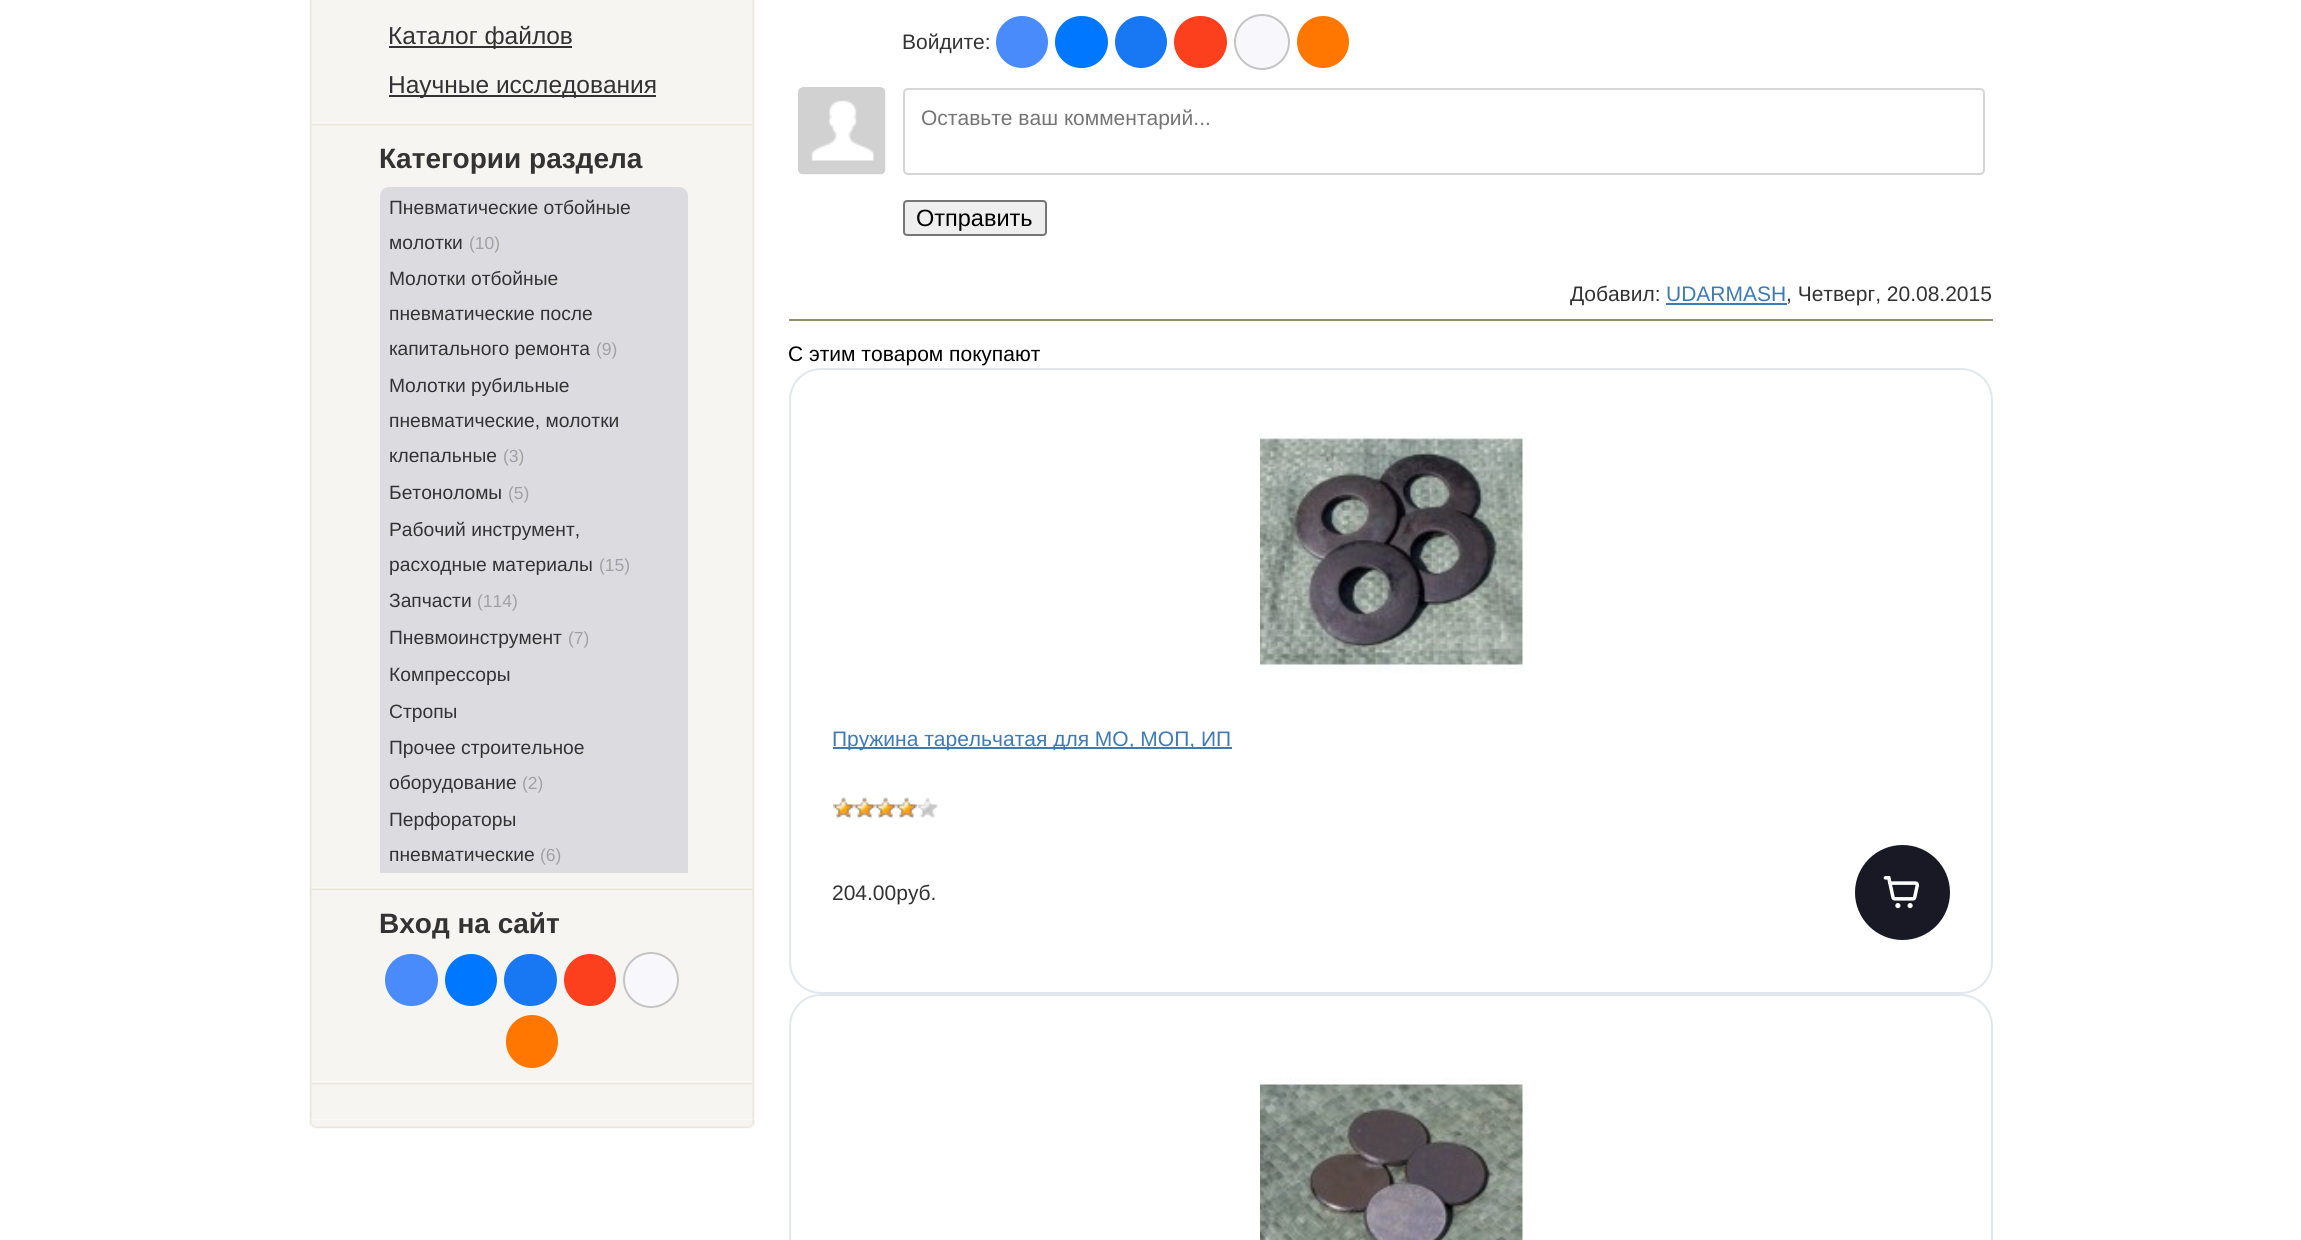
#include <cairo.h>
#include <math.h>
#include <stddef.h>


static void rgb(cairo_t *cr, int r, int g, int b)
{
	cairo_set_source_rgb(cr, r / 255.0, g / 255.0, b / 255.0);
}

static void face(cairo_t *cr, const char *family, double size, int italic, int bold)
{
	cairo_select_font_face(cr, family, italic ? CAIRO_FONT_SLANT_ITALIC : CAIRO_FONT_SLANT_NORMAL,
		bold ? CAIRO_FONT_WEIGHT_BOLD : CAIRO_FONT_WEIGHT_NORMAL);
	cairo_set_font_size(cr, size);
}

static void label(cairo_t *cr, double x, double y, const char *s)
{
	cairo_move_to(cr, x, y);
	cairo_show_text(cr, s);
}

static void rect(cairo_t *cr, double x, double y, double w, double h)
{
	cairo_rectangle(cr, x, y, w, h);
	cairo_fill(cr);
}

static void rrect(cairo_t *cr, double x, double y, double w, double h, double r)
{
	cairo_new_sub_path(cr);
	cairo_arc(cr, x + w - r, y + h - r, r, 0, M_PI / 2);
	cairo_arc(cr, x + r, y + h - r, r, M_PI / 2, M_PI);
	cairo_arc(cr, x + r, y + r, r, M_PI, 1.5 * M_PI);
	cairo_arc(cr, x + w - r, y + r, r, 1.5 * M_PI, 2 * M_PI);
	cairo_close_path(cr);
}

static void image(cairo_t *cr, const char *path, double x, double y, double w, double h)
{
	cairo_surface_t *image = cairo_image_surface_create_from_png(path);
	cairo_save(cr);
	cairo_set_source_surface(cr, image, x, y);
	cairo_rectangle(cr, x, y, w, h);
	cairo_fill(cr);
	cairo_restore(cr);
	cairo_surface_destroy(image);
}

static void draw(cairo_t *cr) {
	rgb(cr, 255, 255, 255);
	cairo_paint(cr);
	image(cr, "image0.png", 309, 0, 446, 1120);
	image(cr, "image1.png", 311, 122, 442, 4);
	rgb(cr, 51, 51, 51);
	rect(cr, 389, 46, 183, 2);
	face(cr, "Liberation Sans", 24.5, 0, 0);
	label(cr, 388, 44, "Каталог файлов");
	rect(cr, 389, 95, 267, 2);
	label(cr, 388, 93, "Научные исследования");
	image(cr, "image2.png", 311, 887, 442, 4);
	face(cr, "Liberation Sans", 28, 0, 1);
	label(cr, 379, 168, "Категории раздела");
	rgb(cr, 220, 219, 224);
	cairo_new_path(cr);
	cairo_move_to(cr, 389, 187);
	cairo_line_to(cr, 679, 187);
	cairo_curve_to(cr, 684, 187, 688, 191, 688, 196);
	cairo_line_to(cr, 688, 873);
	cairo_line_to(cr, 380, 873);
	cairo_line_to(cr, 380, 196);
	cairo_curve_to(cr, 380, 191, 384, 187, 389, 187);
	cairo_close_path(cr);
	cairo_fill(cr);
	face(cr, "Liberation Sans", 19.25, 0, 0);
	rgb(cr, 51, 51, 51);
	label(cr, 389, 214, "Пневматические отбойные");
	label(cr, 389, 249, "молотки");
	face(cr, "Liberation Sans", 17.5, 0, 0);
	rgb(cr, 161, 161, 161);
	label(cr, 469, 249, "(10)");
	face(cr, "Liberation Sans", 19.25, 0, 0);
	rgb(cr, 51, 51, 51);
	label(cr, 389, 285, "Молотки отбойные");
	label(cr, 389, 320, "пневматические после");
	label(cr, 389, 355, "капитального ремонта");
	face(cr, "Liberation Sans", 17.5, 0, 0);
	rgb(cr, 161, 161, 161);
	label(cr, 596, 355, "(9)");
	face(cr, "Liberation Sans", 19.25, 0, 0);
	rgb(cr, 51, 51, 51);
	label(cr, 389, 392, "Молотки рубильные");
	label(cr, 389, 427, "пневматические, молотки");
	label(cr, 389, 462, "клепальные");
	face(cr, "Liberation Sans", 17.5, 0, 0);
	rgb(cr, 161, 161, 161);
	label(cr, 503, 462, "(3)");
	face(cr, "Liberation Sans", 19.25, 0, 0);
	rgb(cr, 51, 51, 51);
	label(cr, 389, 499, "Бетоноломы");
	face(cr, "Liberation Sans", 17.5, 0, 0);
	rgb(cr, 161, 161, 161);
	label(cr, 508, 499, "(5)");
	face(cr, "Liberation Sans", 19.25, 0, 0);
	rgb(cr, 51, 51, 51);
	label(cr, 389, 536, "Рабочий инструмент,");
	label(cr, 389, 571, "расходные материалы");
	face(cr, "Liberation Sans", 17.5, 0, 0);
	rgb(cr, 161, 161, 161);
	label(cr, 599, 571, "(15)");
	face(cr, "Liberation Sans", 19.25, 0, 0);
	rgb(cr, 51, 51, 51);
	label(cr, 389, 607, "Запчасти");
	face(cr, "Liberation Sans", 17.5, 0, 0);
	rgb(cr, 161, 161, 161);
	label(cr, 477, 607, "(114)");
	face(cr, "Liberation Sans", 19.25, 0, 0);
	rgb(cr, 51, 51, 51);
	label(cr, 389, 644, "Пневмоинструмент");
	face(cr, "Liberation Sans", 17.5, 0, 0);
	rgb(cr, 161, 161, 161);
	label(cr, 568, 644, "(7)");
	face(cr, "Liberation Sans", 19.25, 0, 0);
	rgb(cr, 51, 51, 51);
	label(cr, 389, 681, "Компрессоры");
	label(cr, 389, 718, "Стропы");
	label(cr, 389, 754, "Прочее строительное");
	label(cr, 389, 789, "оборудование");
	face(cr, "Liberation Sans", 17.5, 0, 0);
	rgb(cr, 161, 161, 161);
	label(cr, 522, 789, "(2)");
	face(cr, "Liberation Sans", 19.25, 0, 0);
	rgb(cr, 51, 51, 51);
	label(cr, 389, 826, "Перфораторы");
	label(cr, 389, 861, "пневматические");
	face(cr, "Liberation Sans", 17.5, 0, 0);
	rgb(cr, 161, 161, 161);
	label(cr, 540, 861, "(6)");
	image(cr, "image1.png", 311, 1081, 442, 4);
	face(cr, "Liberation Sans", 28, 0, 1);
	rgb(cr, 51, 51, 51);
	label(cr, 379, 933, "Вход на сайт");
	rgb(cr, 73, 139, 250);
	rrect(cr, 385, 954, 53, 52, 26);
	cairo_fill(cr);
	rgb(cr, 0, 119, 255);
	cairo_arc(cr, 471, 980, 26, 0, 2 * M_PI);
	cairo_fill(cr);
	rgb(cr, 24, 119, 242);
	rrect(cr, 504, 954, 53, 52, 26);
	cairo_fill(cr);
	rgb(cr, 252, 63, 29);
	cairo_arc(cr, 590, 980, 26, 0, 2 * M_PI);
	cairo_fill(cr);
	rgb(cr, 248, 248, 252);
	cairo_arc(cr, 651, 980, 27, 0, 2 * M_PI);
	cairo_fill_preserve(cr);
	rgb(cr, 196, 196, 196);
	cairo_stroke(cr);
	rgb(cr, 255, 119, 0);
	rrect(cr, 506, 1015, 52, 53, 26);
	cairo_fill(cr);
	image(cr, "image3.png", 309, 1119, 446, 10);
	face(cr, "Liberation Sans", 21, 0, 0);
	rgb(cr, 51, 51, 51);
	label(cr, 902, 49, "Войдите:");
	rgb(cr, 73, 139, 250);
	cairo_new_path(cr);
	cairo_arc(cr, 1022, 42, 26, 0, 2 * M_PI);
	cairo_fill(cr);
	rgb(cr, 0, 119, 255);
	rrect(cr, 1055, 16, 53, 52, 26);
	cairo_fill(cr);
	rgb(cr, 24, 119, 242);
	cairo_arc(cr, 1141, 42, 26, 0, 2 * M_PI);
	cairo_fill(cr);
	rgb(cr, 252, 63, 29);
	rrect(cr, 1174, 16, 53, 52, 26);
	cairo_fill(cr);
	rgb(cr, 248, 248, 252);
	cairo_arc(cr, 1262, 42, 27, 0, 2 * M_PI);
	cairo_fill_preserve(cr);
	rgb(cr, 196, 196, 196);
	cairo_stroke(cr);
	rgb(cr, 255, 119, 0);
	cairo_arc(cr, 1323, 42, 26, 0, 2 * M_PI);
	cairo_fill(cr);
	image(cr, "image4.png", 798, 87, 88, 88);
	rrect(cr, 904, 89, 1080, 85, 4);
	rgb(cr, 214, 214, 214);
	cairo_stroke(cr);
	rgb(cr, 117, 117, 117);
	label(cr, 921, 125, "Оставьте ваш комментарий...");
	rgb(cr, 239, 239, 239);
	rrect(cr, 904, 201, 142, 34, 3);
	cairo_fill_preserve(cr);
	rgb(cr, 118, 118, 118);
	cairo_stroke(cr);
	face(cr, "Liberation Sans", 23.5, 0, 0);
	rgb(cr, 0, 0, 0);
	label(cr, 916, 226, "Отправить");
	face(cr, "Liberation Sans", 21, 0, 0);
	rgb(cr, 51, 51, 51);
	label(cr, 1570, 301, "Добавил:");
	rgb(cr, 64, 122, 178);
	label(cr, 1666, 301, "UDARMASH");
	rect(cr, 1666, 303, 121, 2);
	rgb(cr, 51, 51, 51);
	label(cr, 1786, 301, ", Четверг, 20.08.2015");
	rgb(cr, 145, 143, 105);
	rect(cr, 789, 319, 1204, 2);
	rgb(cr, 0, 0, 0);
	label(cr, 788, 361, "С этим товаром покупают");
	rrect(cr, 790, 369, 1202, 624, 31);
	rgb(cr, 225, 232, 237);
	cairo_stroke(cr);
	image(cr, "image5.png", 1260, 435, 263, 238);
	rgb(cr, 64, 122, 178);
	rect(cr, 833, 747, 399, 2);
	label(cr, 832, 746, "Пружина тарельчатая для МО, МОП, ИП");
	image(cr, "image6.png", 833, 797, 105, 22);
	image(cr, "image7.png", 833, 797, 84, 22);
	rgb(cr, 51, 51, 51);
	label(cr, 832, 900, "204.00руб.");
	rgb(cr, 25, 25, 37);
	cairo_new_path(cr);
	cairo_arc(cr, 1902.5, 892.5, 47.5, 0, 2 * M_PI);
	cairo_fill(cr);
	image(cr, "image8.png", 1883, 876, 36, 33);
	rrect(cr, 790, 995, 1202, 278, 31);
	rgb(cr, 225, 232, 237);
	cairo_stroke(cr);
	image(cr, "image9.png", 1260, 1078, 263, 162);
}

int main(void) {
	cairo_surface_t *surface = cairo_image_surface_create(CAIRO_FORMAT_RGB24, 2301, 1240);
	cairo_t *cr = cairo_create(surface);
	cairo_font_options_t *options = cairo_font_options_create();
	cairo_font_options_set_hint_metrics(options, CAIRO_HINT_METRICS_OFF);
	cairo_font_options_set_hint_style(options, CAIRO_HINT_STYLE_NONE);
	cairo_set_font_options(cr, options);
	cairo_set_miter_limit(cr, 4);
	draw(cr);
	cairo_surface_write_to_png(surface, "render.png");
	cairo_font_options_destroy(options);
	cairo_destroy(cr);
	cairo_surface_destroy(surface);
	return 0;
}
